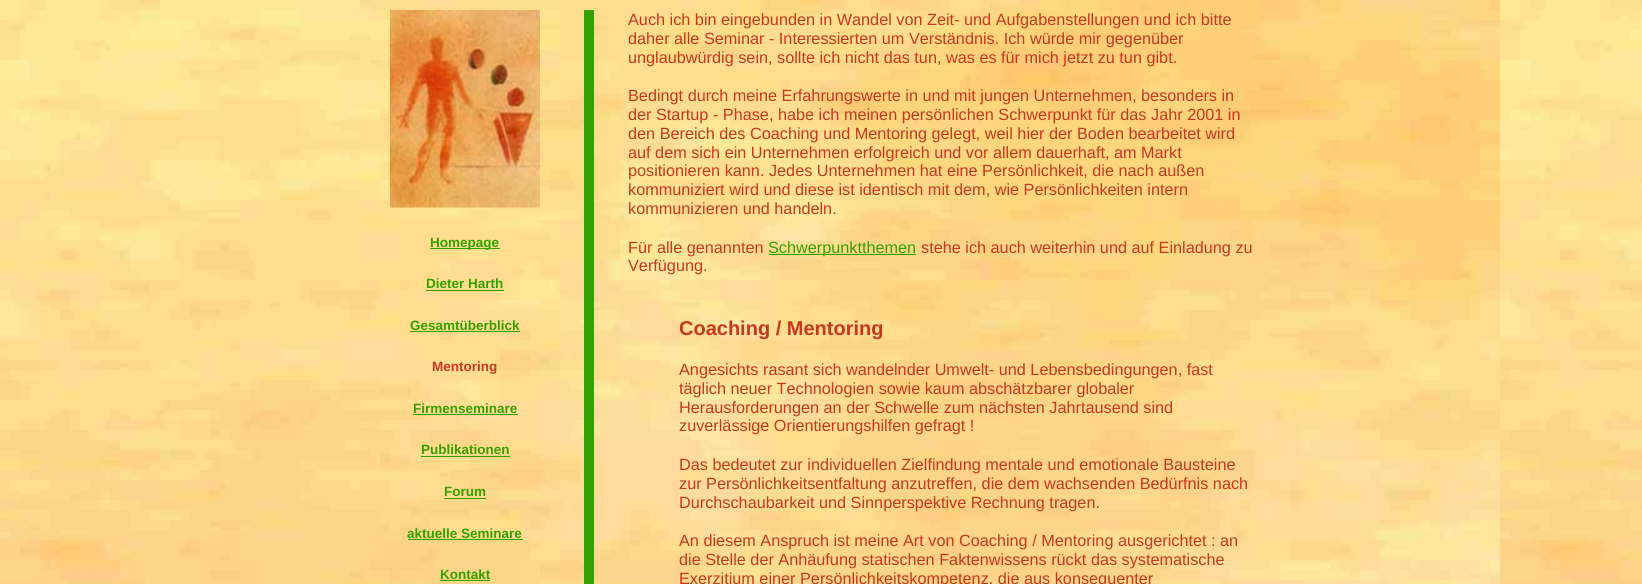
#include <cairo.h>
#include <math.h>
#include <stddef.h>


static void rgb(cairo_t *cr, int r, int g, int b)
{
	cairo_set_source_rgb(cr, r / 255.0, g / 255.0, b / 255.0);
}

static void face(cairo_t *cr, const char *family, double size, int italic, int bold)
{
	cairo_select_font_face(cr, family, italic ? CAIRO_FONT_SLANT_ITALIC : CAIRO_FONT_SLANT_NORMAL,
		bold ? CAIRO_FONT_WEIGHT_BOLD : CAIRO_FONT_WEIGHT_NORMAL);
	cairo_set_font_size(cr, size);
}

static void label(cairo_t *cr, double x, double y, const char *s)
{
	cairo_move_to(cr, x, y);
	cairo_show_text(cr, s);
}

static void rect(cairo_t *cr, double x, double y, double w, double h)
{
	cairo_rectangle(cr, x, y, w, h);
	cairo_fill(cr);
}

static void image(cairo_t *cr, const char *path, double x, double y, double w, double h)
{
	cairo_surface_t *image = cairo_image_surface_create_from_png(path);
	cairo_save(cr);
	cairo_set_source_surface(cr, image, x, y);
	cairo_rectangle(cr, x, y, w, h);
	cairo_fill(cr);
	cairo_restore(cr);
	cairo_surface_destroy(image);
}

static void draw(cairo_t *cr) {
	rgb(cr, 255, 255, 255);
	cairo_paint(cr);
	image(cr, "image0.png", 0, 0, 1642, 584);
	image(cr, "image1.png", 390, 10, 150, 198);
	rgb(cr, 53, 160, 1);
	rect(cr, 430, 248, 70, 1);
	face(cr, "Liberation Sans", 13.5, 0, 1);
	label(cr, 430, 247, "Homepage");
	label(cr, 426, 288, "Dieter Harth");
	rect(cr, 426, 290, 78, 1);
	label(cr, 410, 330, "Gesamtüberblick");
	rect(cr, 410, 331, 110, 1);
	rgb(cr, 198, 57, 33);
	label(cr, 432, 371, "Mentoring");
	rgb(cr, 53, 160, 1);
	label(cr, 413, 413, "Firmenseminare");
	rect(cr, 413, 414, 105, 1);
	label(cr, 421, 454, "Publikationen");
	rect(cr, 421, 456, 89, 1);
	label(cr, 444, 496, "Forum");
	rect(cr, 444, 498, 42, 1);
	label(cr, 407, 538, "aktuelle Seminare");
	rect(cr, 408, 539, 115, 1);
	label(cr, 440, 579, "Kontakt");
	rect(cr, 440, 580, 50, 1);
	rect(cr, 584, 10, 10, 574);
	face(cr, "Liberation Sans", 16.25, 0, 0);
	rgb(cr, 198, 57, 33);
	label(cr, 628, 25, "Auch ich bin eingebunden in Wandel von Zeit- und Aufgabenstellungen und ich bitte");
	label(cr, 628, 44, "daher alle Seminar - Interessierten um Verständnis. Ich würde mir gegenüber");
	label(cr, 628, 63, "unglaubwürdig sein, sollte ich nicht das tun, was es für mich jetzt zu tun gibt.");
	label(cr, 628, 101, "Bedingt durch meine Erfahrungswerte in und mit jungen Unternehmen, besonders in");
	label(cr, 628, 120, "der Startup - Phase, habe ich meinen persönlichen Schwerpunkt für das Jahr 2001 in");
	label(cr, 628, 139, "den Bereich des Coaching und Mentoring gelegt, weil hier der Boden bearbeitet wird");
	label(cr, 628, 158, "auf dem sich ein Unternehmen erfolgreich und vor allem dauerhaft, am Markt");
	label(cr, 628, 176, "positionieren kann. Jedes Unternehmen hat eine Persönlichkeit, die nach außen");
	label(cr, 628, 195, "kommuniziert wird und diese ist identisch mit dem, wie Persönlichkeiten intern");
	label(cr, 628, 214, "kommunizieren und handeln.");
	label(cr, 628, 253, "Für alle genannten");
	rgb(cr, 53, 160, 1);
	rect(cr, 769, 254, 147, 1);
	label(cr, 768, 253, "Schwerpunktthemen");
	rgb(cr, 198, 57, 33);
	label(cr, 921, 253, "stehe ich auch weiterhin und auf Einladung zu");
	label(cr, 628, 271, "Verfügung.");
	face(cr, "Liberation Sans", 20, 0, 1);
	label(cr, 679, 335, "Coaching / Mentoring");
	face(cr, "Liberation Sans", 16.25, 0, 0);
	label(cr, 679, 375, "Angesichts rasant sich wandelnder Umwelt- und Lebensbedingungen, fast");
	label(cr, 679, 394, "täglich neuer Technologien sowie kaum abschätzbarer globaler");
	label(cr, 679, 413, "Herausforderungen an der Schwelle zum nächsten Jahrtausend sind");
	label(cr, 679, 431, "zuverlässige Orientierungshilfen gefragt !");
	label(cr, 679, 470, "Das bedeutet zur individuellen Zielfindung mentale und emotionale Bausteine");
	label(cr, 679, 489, "zur Persönlichkeitsentfaltung anzutreffen, die dem wachsenden Bedürfnis nach");
	label(cr, 679, 508, "Durchschaubarkeit und Sinnperspektive Rechnung tragen.");
	label(cr, 679, 546, "An diesem Anspruch ist meine Art von Coaching / Mentoring ausgerichtet : an");
	label(cr, 679, 565, "die Stelle der Anhäufung statischen Faktenwissens rückt das systematische");
	label(cr, 679, 584, "Exerzitium einer Persönlichkeitskompetenz, die aus konsequenter");
}

int main(void) {
	cairo_surface_t *surface = cairo_image_surface_create(CAIRO_FORMAT_RGB24, 1642, 584);
	cairo_t *cr = cairo_create(surface);
	cairo_font_options_t *options = cairo_font_options_create();
	cairo_font_options_set_hint_metrics(options, CAIRO_HINT_METRICS_OFF);
	cairo_font_options_set_hint_style(options, CAIRO_HINT_STYLE_NONE);
	cairo_set_font_options(cr, options);
	cairo_set_miter_limit(cr, 4);
	draw(cr);
	cairo_surface_write_to_png(surface, "render.png");
	cairo_font_options_destroy(options);
	cairo_destroy(cr);
	cairo_surface_destroy(surface);
	return 0;
}
